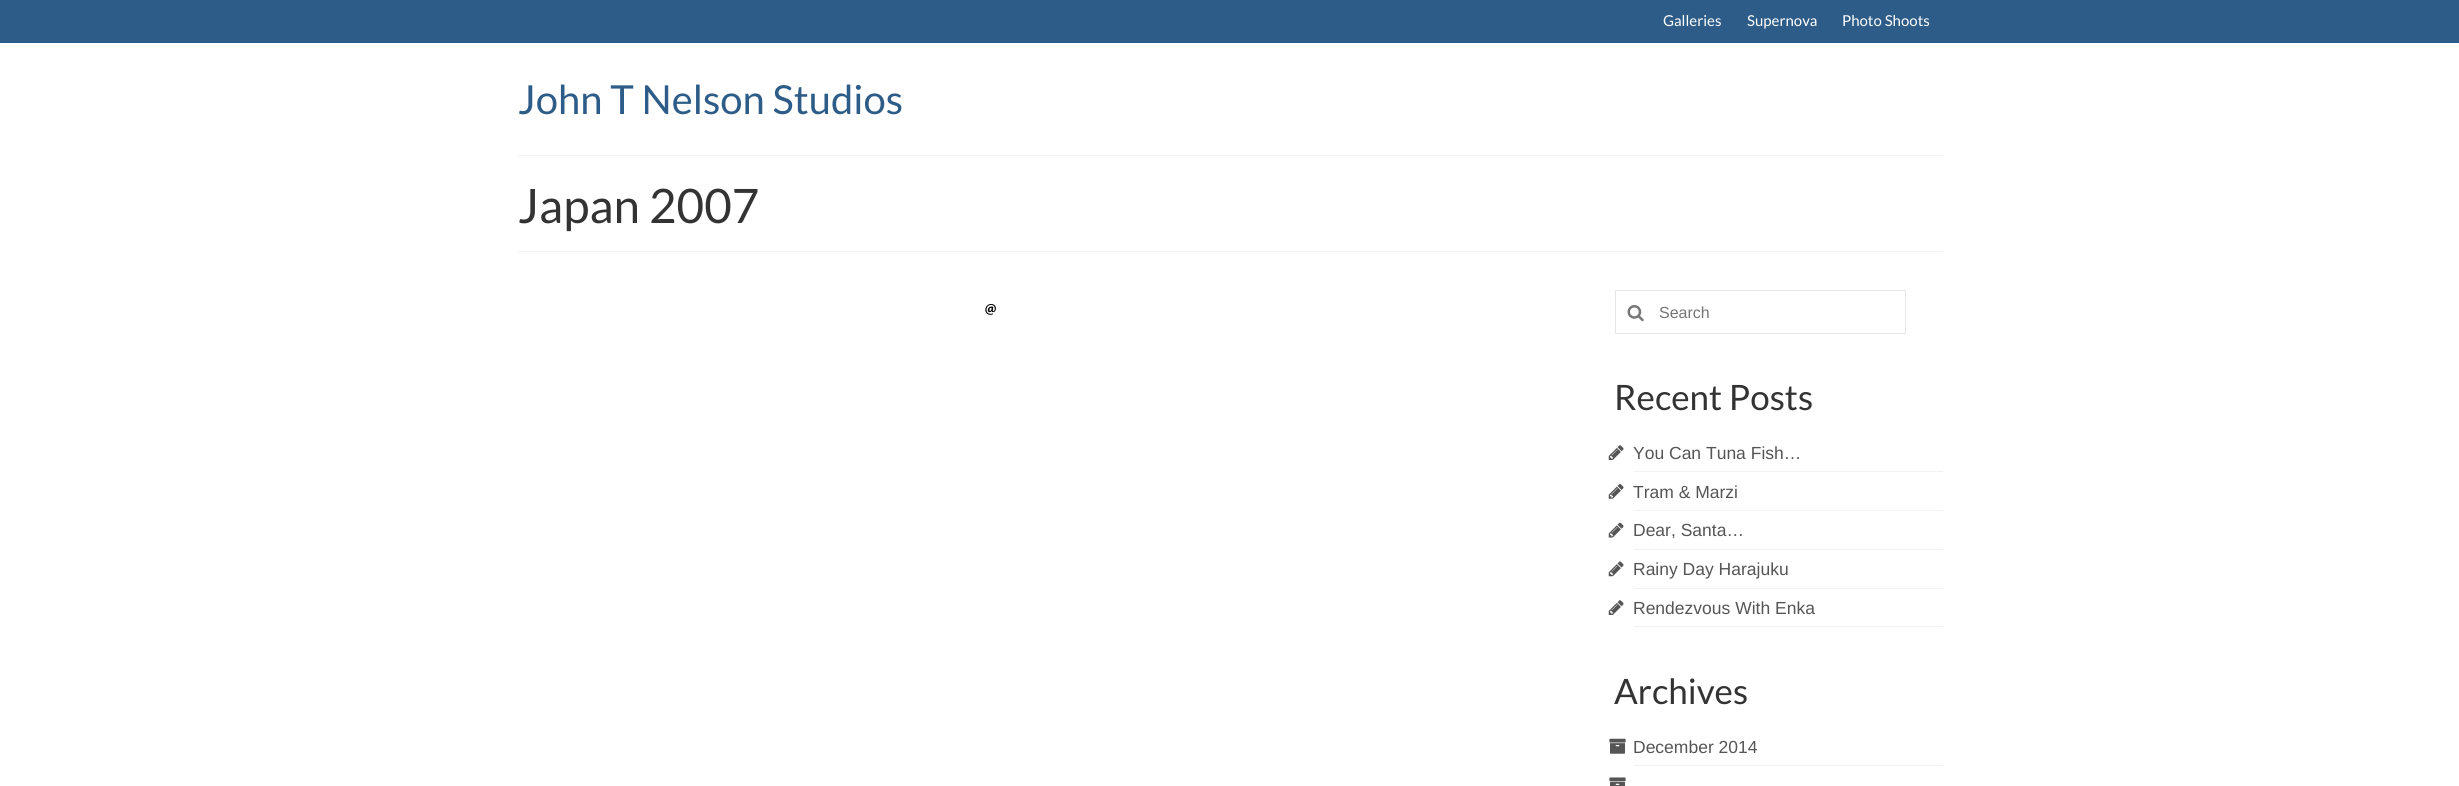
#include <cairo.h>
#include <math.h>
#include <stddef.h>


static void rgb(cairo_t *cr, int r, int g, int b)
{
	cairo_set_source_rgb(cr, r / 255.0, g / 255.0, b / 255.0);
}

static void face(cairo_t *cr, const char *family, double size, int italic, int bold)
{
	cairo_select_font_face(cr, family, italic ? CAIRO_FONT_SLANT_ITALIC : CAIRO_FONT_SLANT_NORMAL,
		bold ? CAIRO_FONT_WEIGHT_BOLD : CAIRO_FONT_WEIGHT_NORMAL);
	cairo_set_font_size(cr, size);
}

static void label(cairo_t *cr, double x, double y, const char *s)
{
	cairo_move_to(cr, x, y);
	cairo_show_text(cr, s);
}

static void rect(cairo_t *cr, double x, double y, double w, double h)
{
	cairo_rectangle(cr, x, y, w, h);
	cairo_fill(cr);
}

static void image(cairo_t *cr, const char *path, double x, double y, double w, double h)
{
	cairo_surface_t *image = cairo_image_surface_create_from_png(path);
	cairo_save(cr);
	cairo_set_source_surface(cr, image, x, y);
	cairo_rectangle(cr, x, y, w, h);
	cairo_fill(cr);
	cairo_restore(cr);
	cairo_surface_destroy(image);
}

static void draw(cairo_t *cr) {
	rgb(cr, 255, 255, 255);
	cairo_paint(cr);
	rgb(cr, 45, 92, 136);
	rect(cr, 0, 0, 2459, 43);
	face(cr, "Lato", 15, 0, 0);
	rgb(cr, 255, 255, 255);
	label(cr, 1663, 26, "Galleries");
	label(cr, 1747, 26, "Supernova");
	label(cr, 1842, 26, "Photo Shoots");
	face(cr, "Lato", 40, 0, 0);
	rgb(cr, 45, 92, 136);
	label(cr, 518, 114, "John T Nelson Studios");
	rgb(cr, 242, 242, 242);
	rect(cr, 518, 155, 1425, 1);
	rect(cr, 518, 251, 1425, 1);
	face(cr, "Lato", 47.5, 0, 0);
	rgb(cr, 51, 51, 51);
	label(cr, 518, 223, "Japan 2007");
	image(cr, "image0.png", 985, 304, 11, 11);
	cairo_rectangle(cr, 1615.5, 290.5, 290, 43);
	rgb(cr, 231, 231, 231);
	cairo_set_line_width(cr, 1);
	cairo_stroke(cr);
	image(cr, "image1.png", 1627, 305, 17, 17);
	face(cr, "Liberation Sans", 16, 0, 0);
	rgb(cr, 117, 117, 117);
	label(cr, 1659, 318, "Search");
	face(cr, "Lato", 35, 0, 0);
	rgb(cr, 51, 51, 51);
	label(cr, 1614, 410, "Recent Posts");
	rgb(cr, 242, 242, 242);
	rect(cr, 1634, 471, 309, 1);
	image(cr, "image2.png", 1608, 445, 16, 15);
	face(cr, "Liberation Sans", 17.5, 0, 0);
	rgb(cr, 85, 85, 85);
	label(cr, 1633, 459, "You Can Tuna Fish…");
	rgb(cr, 242, 242, 242);
	rect(cr, 1634, 510, 309, 1);
	image(cr, "image3.png", 1608, 484, 16, 15);
	rgb(cr, 85, 85, 85);
	label(cr, 1633, 498, "Tram & Marzi");
	rgb(cr, 242, 242, 242);
	rect(cr, 1634, 549, 309, 1);
	image(cr, "image4.png", 1608, 522, 16, 16);
	rgb(cr, 85, 85, 85);
	label(cr, 1633, 536, "Dear, Santa…");
	rgb(cr, 242, 242, 242);
	rect(cr, 1634, 588, 309, 1);
	image(cr, "image5.png", 1608, 561, 16, 16);
	rgb(cr, 85, 85, 85);
	label(cr, 1633, 575, "Rainy Day Harajuku");
	rgb(cr, 242, 242, 242);
	rect(cr, 1634, 626, 309, 1);
	image(cr, "image2.png", 1608, 600, 16, 15);
	rgb(cr, 85, 85, 85);
	label(cr, 1633, 614, "Rendezvous With Enka");
	face(cr, "Lato", 35, 0, 0);
	rgb(cr, 51, 51, 51);
	label(cr, 1614, 704, "Archives");
	rgb(cr, 242, 242, 242);
	rect(cr, 1634, 765, 309, 1);
	image(cr, "image6.png", 1609, 738, 17, 16);
	face(cr, "Liberation Sans", 17.5, 0, 0);
	rgb(cr, 85, 85, 85);
	label(cr, 1633, 753, "December 2014");
	image(cr, "image7.png", 1609, 777, 17, 9);
}

int main(void) {
	cairo_surface_t *surface = cairo_image_surface_create(CAIRO_FORMAT_RGB24, 2459, 786);
	cairo_t *cr = cairo_create(surface);
	cairo_font_options_t *options = cairo_font_options_create();
	cairo_font_options_set_hint_metrics(options, CAIRO_HINT_METRICS_OFF);
	cairo_font_options_set_hint_style(options, CAIRO_HINT_STYLE_NONE);
	cairo_set_font_options(cr, options);
	cairo_set_miter_limit(cr, 4);
	draw(cr);
	cairo_surface_write_to_png(surface, "render.png");
	cairo_font_options_destroy(options);
	cairo_destroy(cr);
	cairo_surface_destroy(surface);
	return 0;
}
